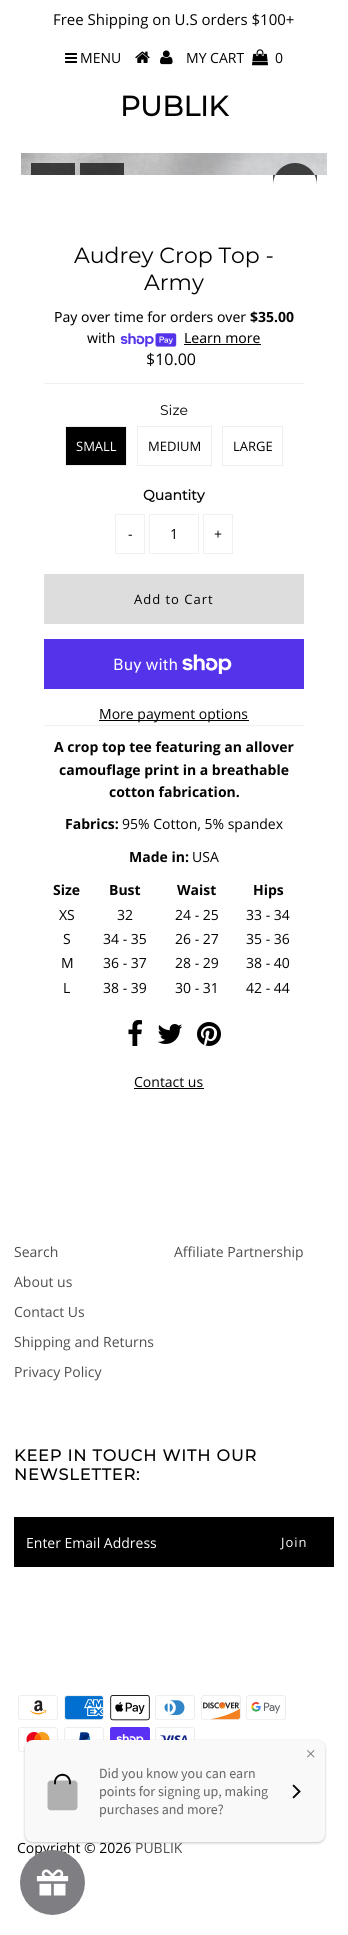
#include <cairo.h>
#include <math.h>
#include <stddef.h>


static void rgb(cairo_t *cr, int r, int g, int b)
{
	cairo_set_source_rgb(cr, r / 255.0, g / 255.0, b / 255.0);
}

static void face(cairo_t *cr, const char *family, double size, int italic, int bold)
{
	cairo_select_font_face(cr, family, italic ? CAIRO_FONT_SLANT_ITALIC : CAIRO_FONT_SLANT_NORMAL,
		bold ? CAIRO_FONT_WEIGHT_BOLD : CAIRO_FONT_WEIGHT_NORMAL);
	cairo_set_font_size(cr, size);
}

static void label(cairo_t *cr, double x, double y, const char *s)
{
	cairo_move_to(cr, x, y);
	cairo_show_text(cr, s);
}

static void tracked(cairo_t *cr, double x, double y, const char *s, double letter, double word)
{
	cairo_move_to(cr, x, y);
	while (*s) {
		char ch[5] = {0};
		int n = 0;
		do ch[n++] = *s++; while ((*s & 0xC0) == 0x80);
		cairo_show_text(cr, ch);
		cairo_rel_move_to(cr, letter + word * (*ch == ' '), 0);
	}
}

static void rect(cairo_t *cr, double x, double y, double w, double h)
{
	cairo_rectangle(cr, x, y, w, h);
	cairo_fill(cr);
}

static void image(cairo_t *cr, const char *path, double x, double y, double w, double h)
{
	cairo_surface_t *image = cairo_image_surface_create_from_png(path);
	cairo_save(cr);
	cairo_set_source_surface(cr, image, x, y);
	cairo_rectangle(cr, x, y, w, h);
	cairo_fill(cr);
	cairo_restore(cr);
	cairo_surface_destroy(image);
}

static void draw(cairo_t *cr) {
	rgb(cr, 255, 255, 255);
	cairo_paint(cr);
	face(cr, "Open Sans", 15, 0, 0);
	rgb(cr, 2, 2, 2);
	label(cr, 53, 25, "Free Shipping on U.S orders $100+");
	image(cr, "image0.png", 65, 53, 12, 10);
	face(cr, "Open Sans", 14, 0, 0);
	label(cr, 80, 63, "MENU");
	image(cr, "image1.png", 135, 51, 15, 12);
	image(cr, "image2.png", 160, 50, 13, 15);
	label(cr, 186, 63, "MY CART");
	image(cr, "image3.png", 252, 49, 16, 17);
	label(cr, 275, 63, "0");
	face(cr, "Montserrat", 28, 0, 1);
	label(cr, 120, 116, "PUBLIK");
	image(cr, "image4.png", 21, 153, 306, 22);
	cairo_set_source_rgba(cr, 0, 0, 0, 0.7);
	cairo_new_path(cr);
	cairo_move_to(cr, 295, 163);
	cairo_curve_to(cr, 307, 163, 317, 173, 317, 185);
	cairo_line_to(cr, 317, 175);
	cairo_line_to(cr, 273, 175);
	cairo_line_to(cr, 273, 185);
	cairo_curve_to(cr, 273, 173, 283, 163, 295, 163);
	cairo_close_path(cr);
	cairo_fill(cr);
	rect(cr, 31, 163, 44, 12);
	rect(cr, 80, 163, 44, 12);
	face(cr, "Montserrat", 22, 0, 0);
	rgb(cr, 2, 2, 2);
	label(cr, 74, 263, "Audrey Crop Top -");
	label(cr, 144, 290, "Army");
	rgb(cr, 240, 240, 240);
	rect(cr, 44, 725, 260, 1);
	face(cr, "Noto Sans", 14, 0, 0);
	rgb(cr, 2, 2, 2);
	label(cr, 54, 322, "Pay over time for orders over");
	face(cr, "Noto Sans", 14, 0, 1);
	label(cr, 250, 322, "$35.00");
	face(cr, "Noto Sans", 14, 0, 0);
	label(cr, 87, 343, "with");
	image(cr, "image5.png", 120, 333, 57, 14);
	label(cr, 184, 343, "Learn more");
	rgb(cr, 0, 0, 0);
	rect(cr, 184, 344, 77, 1);
	rgb(cr, 240, 240, 240);
	rect(cr, 44, 383, 260, 1);
	face(cr, "Open Sans", 16, 0, 0);
	rgb(cr, 2, 2, 2);
	label(cr, 146, 365, "$10.00");
	face(cr, "Montserrat", 14, 0, 0);
	label(cr, 160, 415, "Size");
	rgb(cr, 0, 0, 0);
	cairo_rectangle(cr, 65.5, 426.5, 61, 39);
	cairo_fill_preserve(cr);
	rgb(cr, 238, 238, 238);
	cairo_set_line_width(cr, 1);
	cairo_stroke(cr);
	face(cr, "Open Sans", 13, 0, 0);
	rgb(cr, 255, 255, 255);
	label(cr, 76, 451, "SMALL");
	cairo_rectangle(cr, 137.5, 426.5, 74, 39);
	rgb(cr, 238, 238, 238);
	cairo_stroke(cr);
	rgb(cr, 2, 2, 2);
	label(cr, 148, 451, "MEDIUM");
	cairo_rectangle(cr, 222.5, 426.5, 60, 39);
	rgb(cr, 238, 238, 238);
	cairo_stroke(cr);
	rgb(cr, 2, 2, 2);
	label(cr, 233, 451, "LARGE");
	face(cr, "Montserrat", 14, 0, 1);
	label(cr, 143, 500, "Quantity");
	cairo_rectangle(cr, 115.5, 514.5, 29, 39);
	rgb(cr, 240, 240, 240);
	cairo_stroke(cr);
	face(cr, "Open Sans", 14, 0, 0);
	rgb(cr, 2, 2, 2);
	label(cr, 128, 539, "-");
	cairo_rectangle(cr, 149.5, 514.5, 49, 39);
	rgb(cr, 240, 240, 240);
	cairo_stroke(cr);
	rgb(cr, 2, 2, 2);
	label(cr, 170, 539, "1");
	cairo_rectangle(cr, 203.5, 514.5, 29, 39);
	rgb(cr, 240, 240, 240);
	cairo_stroke(cr);
	rgb(cr, 2, 2, 2);
	label(cr, 214, 539, "+");
	rgb(cr, 221, 221, 221);
	rect(cr, 44, 574, 260, 50);
	face(cr, "Open Sans", 13, 0, 0);
	rgb(cr, 2, 2, 2);
	tracked(cr, 134, 604, "Add to Cart", 1, 0);
	rgb(cr, 84, 51, 235);
	rect(cr, 44, 639, 260, 50);
	face(cr, "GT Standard", 16, 0, 0);
	rgb(cr, 255, 255, 255);
	label(cr, 113, 670, "Buy with");
	image(cr, "image6.png", 182, 654, 50, 20);
	rgb(cr, 0, 0, 0);
	rect(cr, 99, 720, 150, 1);
	face(cr, "Open Sans", 14, 0, 0);
	rgb(cr, 2, 2, 2);
	label(cr, 99, 719, "More payment options");
	face(cr, "Open Sans", 14, 0, 1);
	label(cr, 54, 752, "A crop top tee featuring an allover");
	label(cr, 59, 775, "camouflage print in a breathable");
	label(cr, 109, 797, "cotton fabrication.");
	label(cr, 65, 829, "Fabrics:");
	face(cr, "Open Sans", 14, 0, 0);
	label(cr, 122, 829, "95% Cotton, 5% spandex");
	face(cr, "Open Sans", 14, 0, 1);
	label(cr, 129, 862, "Made in:");
	face(cr, "Open Sans", 14, 0, 0);
	label(cr, 192, 862, "USA");
	face(cr, "Open Sans", 14, 0, 1);
	label(cr, 53, 895, "Size");
	label(cr, 109, 895, "Bust");
	label(cr, 177, 895, "Waist");
	label(cr, 253, 895, "Hips");
	face(cr, "Open Sans", 14, 0, 0);
	label(cr, 59, 920, "XS");
	label(cr, 117, 920, "32");
	label(cr, 175, 920, "24 - 25");
	label(cr, 246, 920, "33 - 34");
	label(cr, 63, 944, "S");
	label(cr, 103, 944, "34 - 35");
	label(cr, 175, 944, "26 - 27");
	label(cr, 246, 944, "35 - 36");
	label(cr, 61, 968, "M");
	label(cr, 103, 968, "36 - 37");
	label(cr, 175, 968, "28 - 29");
	label(cr, 246, 968, "38 - 40");
	label(cr, 63, 993, "L");
	label(cr, 103, 993, "38 - 39");
	label(cr, 175, 993, "30 - 31");
	label(cr, 246, 993, "42 - 44");
	image(cr, "image7.png", 128, 1020, 14, 26);
	image(cr, "image8.png", 157, 1024, 26, 20);
	image(cr, "image9.png", 197, 1022, 24, 24);
	label(cr, 134, 1087, "Contact us");
	rgb(cr, 0, 0, 0);
	rect(cr, 134, 1088, 70, 1);
	rgb(cr, 78, 78, 78);
	label(cr, 14, 1257, "Search");
	label(cr, 14, 1287, "About us");
	label(cr, 14, 1317, "Contact Us");
	label(cr, 14, 1347, "Shipping and Returns");
	label(cr, 14, 1377, "Privacy Policy");
	label(cr, 174, 1257, "Affiliate Partnership");
	face(cr, "Montserrat", 16, 0, 1);
	rgb(cr, 2, 2, 2);
	tracked(cr, 14, 1461, "KEEP IN TOUCH WITH OUR", 1, 0);
	tracked(cr, 14, 1480, "NEWSLETTER:", 1, 0);
	rgb(cr, 0, 0, 0);
	rect(cr, 14, 1517, 320, 50);
	face(cr, "Open Sans", 14, 0, 0);
	rgb(cr, 255, 255, 255);
	label(cr, 26, 1548, "Enter Email Address");
	face(cr, "Open Sans", 13, 0, 0);
	tracked(cr, 281, 1547, "Join", 1, 0);
	image(cr, "image10.png", 18, 1695, 40, 25);
	image(cr, "image11.png", 64, 1695, 40, 25);
	image(cr, "image12.png", 110, 1695, 40, 26);
	image(cr, "image13.png", 155, 1695, 40, 25);
	image(cr, "image14.png", 201, 1695, 40, 25);
	image(cr, "image15.png", 246, 1695, 40, 25);
	image(cr, "image16.png", 18, 1727, 40, 25);
	image(cr, "image17.png", 64, 1727, 40, 13);
	image(cr, "image18.png", 110, 1727, 40, 13);
	image(cr, "image19.png", 155, 1727, 40, 13);
	face(cr, "Open Sans", 14, 0, 0);
	rgb(cr, 2, 2, 2);
	label(cr, 17, 1853, "Copyright © 2026");
	rgb(cr, 78, 78, 78);
	label(cr, 135, 1853, "PUBLIK");
	image(cr, "image20.png", 23, 1739, 304, 106);
	image(cr, "image21.png", 20, 1850, 65, 65);
}

int main(void) {
	cairo_surface_t *surface = cairo_image_surface_create(CAIRO_FORMAT_RGB24, 348, 1935);
	cairo_t *cr = cairo_create(surface);
	cairo_font_options_t *options = cairo_font_options_create();
	cairo_font_options_set_hint_metrics(options, CAIRO_HINT_METRICS_OFF);
	cairo_font_options_set_hint_style(options, CAIRO_HINT_STYLE_NONE);
	cairo_set_font_options(cr, options);
	cairo_set_miter_limit(cr, 4);
	draw(cr);
	cairo_surface_write_to_png(surface, "render.png");
	cairo_font_options_destroy(options);
	cairo_destroy(cr);
	cairo_surface_destroy(surface);
	return 0;
}
